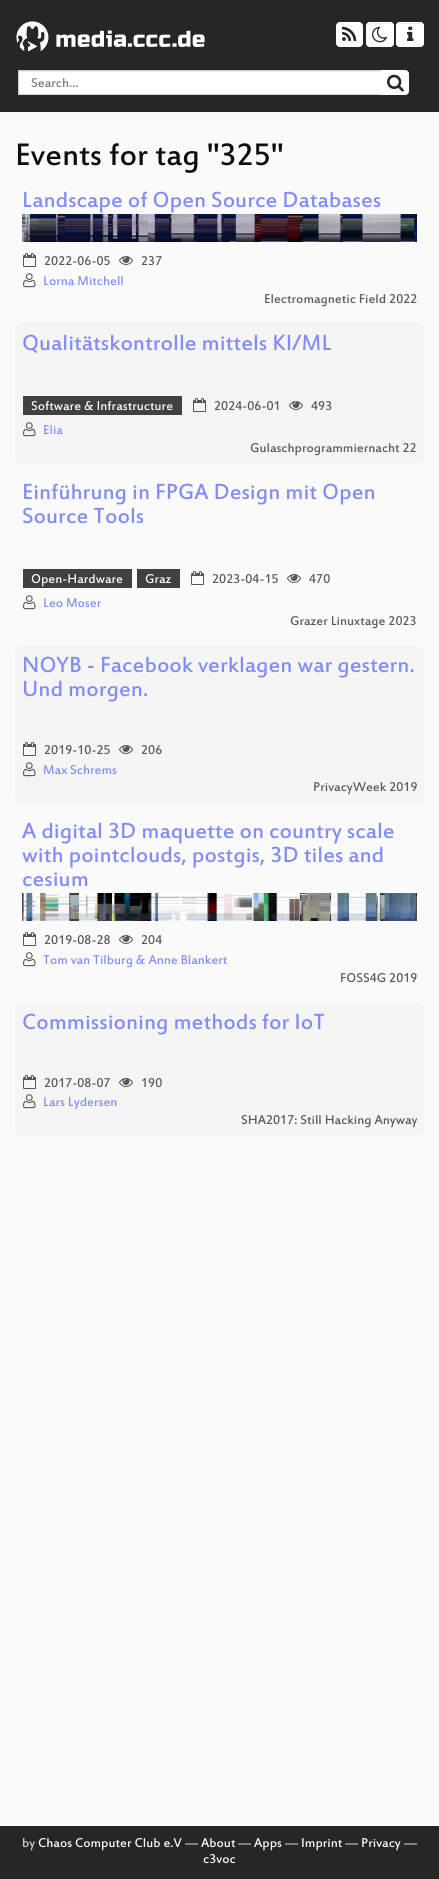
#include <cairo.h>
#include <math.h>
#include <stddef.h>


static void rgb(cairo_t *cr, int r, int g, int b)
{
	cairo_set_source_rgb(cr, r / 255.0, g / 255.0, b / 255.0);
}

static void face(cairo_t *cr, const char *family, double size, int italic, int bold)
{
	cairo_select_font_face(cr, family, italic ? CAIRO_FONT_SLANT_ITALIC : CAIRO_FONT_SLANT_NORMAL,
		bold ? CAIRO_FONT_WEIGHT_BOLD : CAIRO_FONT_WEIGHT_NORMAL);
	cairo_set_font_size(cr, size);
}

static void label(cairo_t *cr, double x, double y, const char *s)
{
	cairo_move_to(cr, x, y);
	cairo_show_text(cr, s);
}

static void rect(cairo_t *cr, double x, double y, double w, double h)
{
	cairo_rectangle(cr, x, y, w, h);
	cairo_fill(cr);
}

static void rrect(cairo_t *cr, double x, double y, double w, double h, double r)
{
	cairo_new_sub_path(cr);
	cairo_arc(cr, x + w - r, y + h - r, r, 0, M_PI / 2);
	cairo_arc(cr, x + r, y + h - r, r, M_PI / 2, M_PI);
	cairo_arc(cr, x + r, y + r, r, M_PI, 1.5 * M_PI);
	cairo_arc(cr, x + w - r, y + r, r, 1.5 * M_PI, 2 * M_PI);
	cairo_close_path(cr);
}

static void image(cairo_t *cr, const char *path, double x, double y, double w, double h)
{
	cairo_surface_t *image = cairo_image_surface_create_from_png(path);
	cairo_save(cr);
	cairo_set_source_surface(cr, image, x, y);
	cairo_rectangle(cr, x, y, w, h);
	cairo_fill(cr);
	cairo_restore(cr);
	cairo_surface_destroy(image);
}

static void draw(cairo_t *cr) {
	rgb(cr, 250, 250, 250);
	cairo_paint(cr);
	rgb(cr, 38, 38, 38);
	rect(cr, 0, 0, 439, 112);
	image(cr, "image0.png", 16, 21, 189, 31);
	rgb(cr, 255, 255, 255);
	rrect(cr, 336.5, 22.5, 26, 24, 3.5);
	cairo_fill_preserve(cr);
	cairo_set_line_width(cr, 1);
	cairo_stroke(cr);
	image(cr, "image1.png", 342, 26, 15, 15);
	rrect(cr, 366, 22, 28, 25, 4);
	cairo_fill(cr);
	rgb(cr, 236, 236, 236);
	cairo_set_fill_rule(cr, CAIRO_FILL_RULE_EVEN_ODD);
	cairo_new_path(cr);
	cairo_move_to(cr, 370, 24);
	cairo_line_to(cr, 387, 24);
	cairo_curve_to(cr, 391.5, 24, 393, 24.5, 393, 27);
	cairo_line_to(cr, 393, 26);
	cairo_curve_to(cr, 393, 24.5, 391.5, 23, 390, 23);
	cairo_line_to(cr, 370, 23);
	cairo_curve_to(cr, 368.5, 23, 367, 24.5, 367, 26);
	cairo_line_to(cr, 367, 30);
	cairo_curve_to(cr, 367, 28, 367, 24, 370, 24);
	cairo_close_path(cr);
	cairo_move_to(cr, 367, 44);
	cairo_line_to(cr, 367, 41);
	cairo_close_path(cr);
	cairo_fill(cr);
	rrect(cr, 366.5, 22.5, 27, 24, 3.5);
	rgb(cr, 255, 255, 255);
	cairo_stroke(cr);
	image(cr, "image2.png", 372, 26, 15, 17);
	rrect(cr, 396, 22, 28, 25, 4);
	cairo_fill(cr);
	rgb(cr, 236, 236, 236);
	cairo_new_path(cr);
	cairo_move_to(cr, 400, 24);
	cairo_line_to(cr, 417, 24);
	cairo_curve_to(cr, 421.5, 24, 423, 24.5, 423, 27);
	cairo_line_to(cr, 423, 26);
	cairo_curve_to(cr, 423, 24.5, 421.5, 23, 420, 23);
	cairo_line_to(cr, 400, 23);
	cairo_curve_to(cr, 398.5, 23, 397, 24.5, 397, 26);
	cairo_line_to(cr, 397, 30);
	cairo_curve_to(cr, 397, 28, 397, 24, 400, 24);
	cairo_close_path(cr);
	cairo_move_to(cr, 397, 44);
	cairo_line_to(cr, 397, 41);
	cairo_close_path(cr);
	cairo_fill(cr);
	rrect(cr, 396.5, 22.5, 27, 24, 3.5);
	rgb(cr, 255, 255, 255);
	cairo_stroke(cr);
	image(cr, "image3.png", 407, 26, 7, 15);
	rect(cr, 19, 72, 362, 22);
	rgb(cr, 236, 236, 236);
	rect(cr, 19, 71, 362, 1);
	cairo_rectangle(cr, 18.5, 70.5, 363, 24);
	rgb(cr, 204, 204, 204);
	cairo_stroke(cr);
	face(cr, "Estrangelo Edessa", 14, 0, 0);
	rgb(cr, 119, 119, 119);
	label(cr, 31, 87, "Search…");
	rgb(cr, 255, 255, 255);
	cairo_new_path(cr);
	cairo_move_to(cr, 381.5, 70.5);
	cairo_line_to(cr, 405, 70.5);
	cairo_curve_to(cr, 407, 70.5, 408.5, 72, 408.5, 74);
	cairo_line_to(cr, 408.5, 91);
	cairo_curve_to(cr, 408.5, 93, 407, 94.5, 405, 94.5);
	cairo_line_to(cr, 381.5, 94.5);
	cairo_close_path(cr);
	cairo_fill_preserve(cr);
	cairo_stroke(cr);
	image(cr, "image4.png", 387, 74, 17, 18);
	face(cr, "Estrangelo Edessa", 34, 0, 0);
	rgb(cr, 13, 13, 13);
	label(cr, 15, 165, "Events for tag \"325\"");
	face(cr, "Estrangelo Edessa", 24, 0, 0);
	rgb(cr, 129, 140, 248);
	label(cr, 22, 207, "Landscape of Open Source Databases");
	image(cr, "image5.png", 22, 214, 395, 28);
	image(cr, "image6.png", 23, 253, 13, 14);
	face(cr, "Estrangelo Edessa", 14, 0, 0);
	rgb(cr, 88, 88, 88);
	label(cr, 44, 265, "2022-06-05");
	image(cr, "image7.png", 119, 256, 14, 9);
	label(cr, 141, 265, "237");
	image(cr, "image8.png", 23, 273, 13, 15);
	rgb(cr, 129, 140, 248);
	label(cr, 43, 285, "Lorna Mitchell");
	rgb(cr, 88, 88, 88);
	label(cr, 264, 303, "Electromagnetic Field 2022");
	rgb(cr, 245, 245, 245);
	rrect(cr, 15, 323, 409, 142, 7);
	cairo_fill(cr);
	face(cr, "Estrangelo Edessa", 24, 0, 0);
	rgb(cr, 129, 140, 248);
	label(cr, 22, 350, "Qualitätskontrolle mittels KI/ML");
	rgb(cr, 64, 64, 64);
	rect(cr, 23, 396, 159, 19);
	face(cr, "Estrangelo Edessa", 14, 0, 0);
	rgb(cr, 255, 255, 255);
	label(cr, 31, 410, "Software & Infrastructure");
	image(cr, "image9.png", 193, 398, 13, 14);
	rgb(cr, 88, 88, 88);
	label(cr, 214, 410, "2024-06-01");
	image(cr, "image10.png", 289, 401, 14, 9);
	label(cr, 311, 410, "493");
	image(cr, "image11.png", 23, 422, 13, 15);
	rgb(cr, 129, 140, 248);
	label(cr, 43, 434, "Elia");
	rgb(cr, 88, 88, 88);
	label(cr, 250, 452, "Gulaschprogrammiernacht 22");
	face(cr, "Estrangelo Edessa", 24, 0, 0);
	rgb(cr, 129, 140, 248);
	label(cr, 22, 499, "Einführung in FPGA Design mit Open");
	label(cr, 22, 523, "Source Tools");
	rgb(cr, 64, 64, 64);
	rect(cr, 23, 569, 109, 19);
	face(cr, "Estrangelo Edessa", 14, 0, 0);
	rgb(cr, 255, 255, 255);
	label(cr, 31, 583, "Open-Hardware");
	rgb(cr, 64, 64, 64);
	rect(cr, 137, 569, 43, 19);
	rgb(cr, 255, 255, 255);
	label(cr, 145, 583, "Graz");
	image(cr, "image6.png", 191, 571, 13, 14);
	rgb(cr, 88, 88, 88);
	label(cr, 212, 583, "2023-04-15");
	image(cr, "image7.png", 287, 574, 14, 9);
	label(cr, 309, 583, "470");
	image(cr, "image8.png", 23, 595, 13, 15);
	rgb(cr, 129, 140, 248);
	label(cr, 43, 607, "Leo Moser");
	rgb(cr, 88, 88, 88);
	label(cr, 290, 625, "Grazer Linuxtage 2023");
	rgb(cr, 245, 245, 245);
	rrect(cr, 15, 645, 409, 159, 7);
	cairo_fill(cr);
	face(cr, "Estrangelo Edessa", 24, 0, 0);
	rgb(cr, 129, 140, 248);
	label(cr, 22, 672, "NOYB - Facebook verklagen war gestern.");
	label(cr, 22, 696, "Und morgen.");
	image(cr, "image9.png", 23, 742, 13, 14);
	face(cr, "Estrangelo Edessa", 14, 0, 0);
	rgb(cr, 88, 88, 88);
	label(cr, 44, 754, "2019-10-25");
	image(cr, "image10.png", 119, 745, 14, 9);
	label(cr, 141, 754, "206");
	image(cr, "image11.png", 23, 762, 13, 15);
	rgb(cr, 129, 140, 248);
	label(cr, 43, 774, "Max Schrems");
	rgb(cr, 88, 88, 88);
	label(cr, 313, 791, "PrivacyWeek 2019");
	face(cr, "Estrangelo Edessa", 24, 0, 0);
	rgb(cr, 129, 140, 248);
	label(cr, 22, 838, "A digital 3D maquette on country scale");
	label(cr, 22, 862, "with pointclouds, postgis, 3D tiles and");
	label(cr, 22, 886, "cesium");
	image(cr, "image12.png", 22, 893, 395, 28);
	image(cr, "image6.png", 23, 932, 13, 14);
	face(cr, "Estrangelo Edessa", 14, 0, 0);
	rgb(cr, 88, 88, 88);
	label(cr, 44, 944, "2019-08-28");
	image(cr, "image7.png", 119, 935, 14, 9);
	label(cr, 141, 944, "204");
	image(cr, "image8.png", 23, 952, 13, 15);
	rgb(cr, 129, 140, 248);
	label(cr, 43, 964, "Tom van Tilburg & Anne Blankert");
	rgb(cr, 88, 88, 88);
	label(cr, 340, 982, "FOSS4G 2019");
	rgb(cr, 245, 245, 245);
	rrect(cr, 15, 1002, 409, 135, 7);
	cairo_fill(cr);
	face(cr, "Estrangelo Edessa", 24, 0, 0);
	rgb(cr, 129, 140, 248);
	label(cr, 22, 1029, "Commissioning methods for IoT");
	image(cr, "image9.png", 23, 1075, 13, 14);
	face(cr, "Estrangelo Edessa", 14, 0, 0);
	rgb(cr, 88, 88, 88);
	label(cr, 44, 1087, "2017-08-07");
	image(cr, "image10.png", 119, 1078, 14, 9);
	label(cr, 141, 1087, "190");
	image(cr, "image11.png", 23, 1094, 13, 15);
	rgb(cr, 129, 140, 248);
	label(cr, 43, 1106, "Lars Lydersen");
	rgb(cr, 88, 88, 88);
	label(cr, 241, 1124, "SHA2017: Still Hacking Anyway");
	rgb(cr, 38, 38, 38);
	rect(cr, 0, 1826, 439, 53);
	rgb(cr, 212, 212, 212);
	label(cr, 22, 1847, "by");
	rgb(cr, 255, 255, 255);
	label(cr, 38, 1847, "Chaos Computer Club e.V");
	rgb(cr, 212, 212, 212);
	label(cr, 185, 1847, "––");
	rgb(cr, 255, 255, 255);
	label(cr, 201, 1847, "About");
	rgb(cr, 212, 212, 212);
	label(cr, 238, 1847, "––");
	rgb(cr, 255, 255, 255);
	label(cr, 254, 1847, "Apps");
	rgb(cr, 212, 212, 212);
	label(cr, 285, 1847, "––");
	rgb(cr, 255, 255, 255);
	label(cr, 301, 1847, "Imprint");
	rgb(cr, 212, 212, 212);
	label(cr, 345, 1847, "––");
	rgb(cr, 255, 255, 255);
	label(cr, 361, 1847, "Privacy");
	rgb(cr, 212, 212, 212);
	label(cr, 404, 1847, "––");
	rgb(cr, 255, 255, 255);
	label(cr, 203, 1863, "c3voc");
}

int main(void) {
	cairo_surface_t *surface = cairo_image_surface_create(CAIRO_FORMAT_RGB24, 439, 1879);
	cairo_t *cr = cairo_create(surface);
	cairo_font_options_t *options = cairo_font_options_create();
	cairo_font_options_set_hint_metrics(options, CAIRO_HINT_METRICS_OFF);
	cairo_font_options_set_hint_style(options, CAIRO_HINT_STYLE_NONE);
	cairo_set_font_options(cr, options);
	cairo_set_miter_limit(cr, 4);
	draw(cr);
	cairo_surface_write_to_png(surface, "render.png");
	cairo_font_options_destroy(options);
	cairo_destroy(cr);
	cairo_surface_destroy(surface);
	return 0;
}
